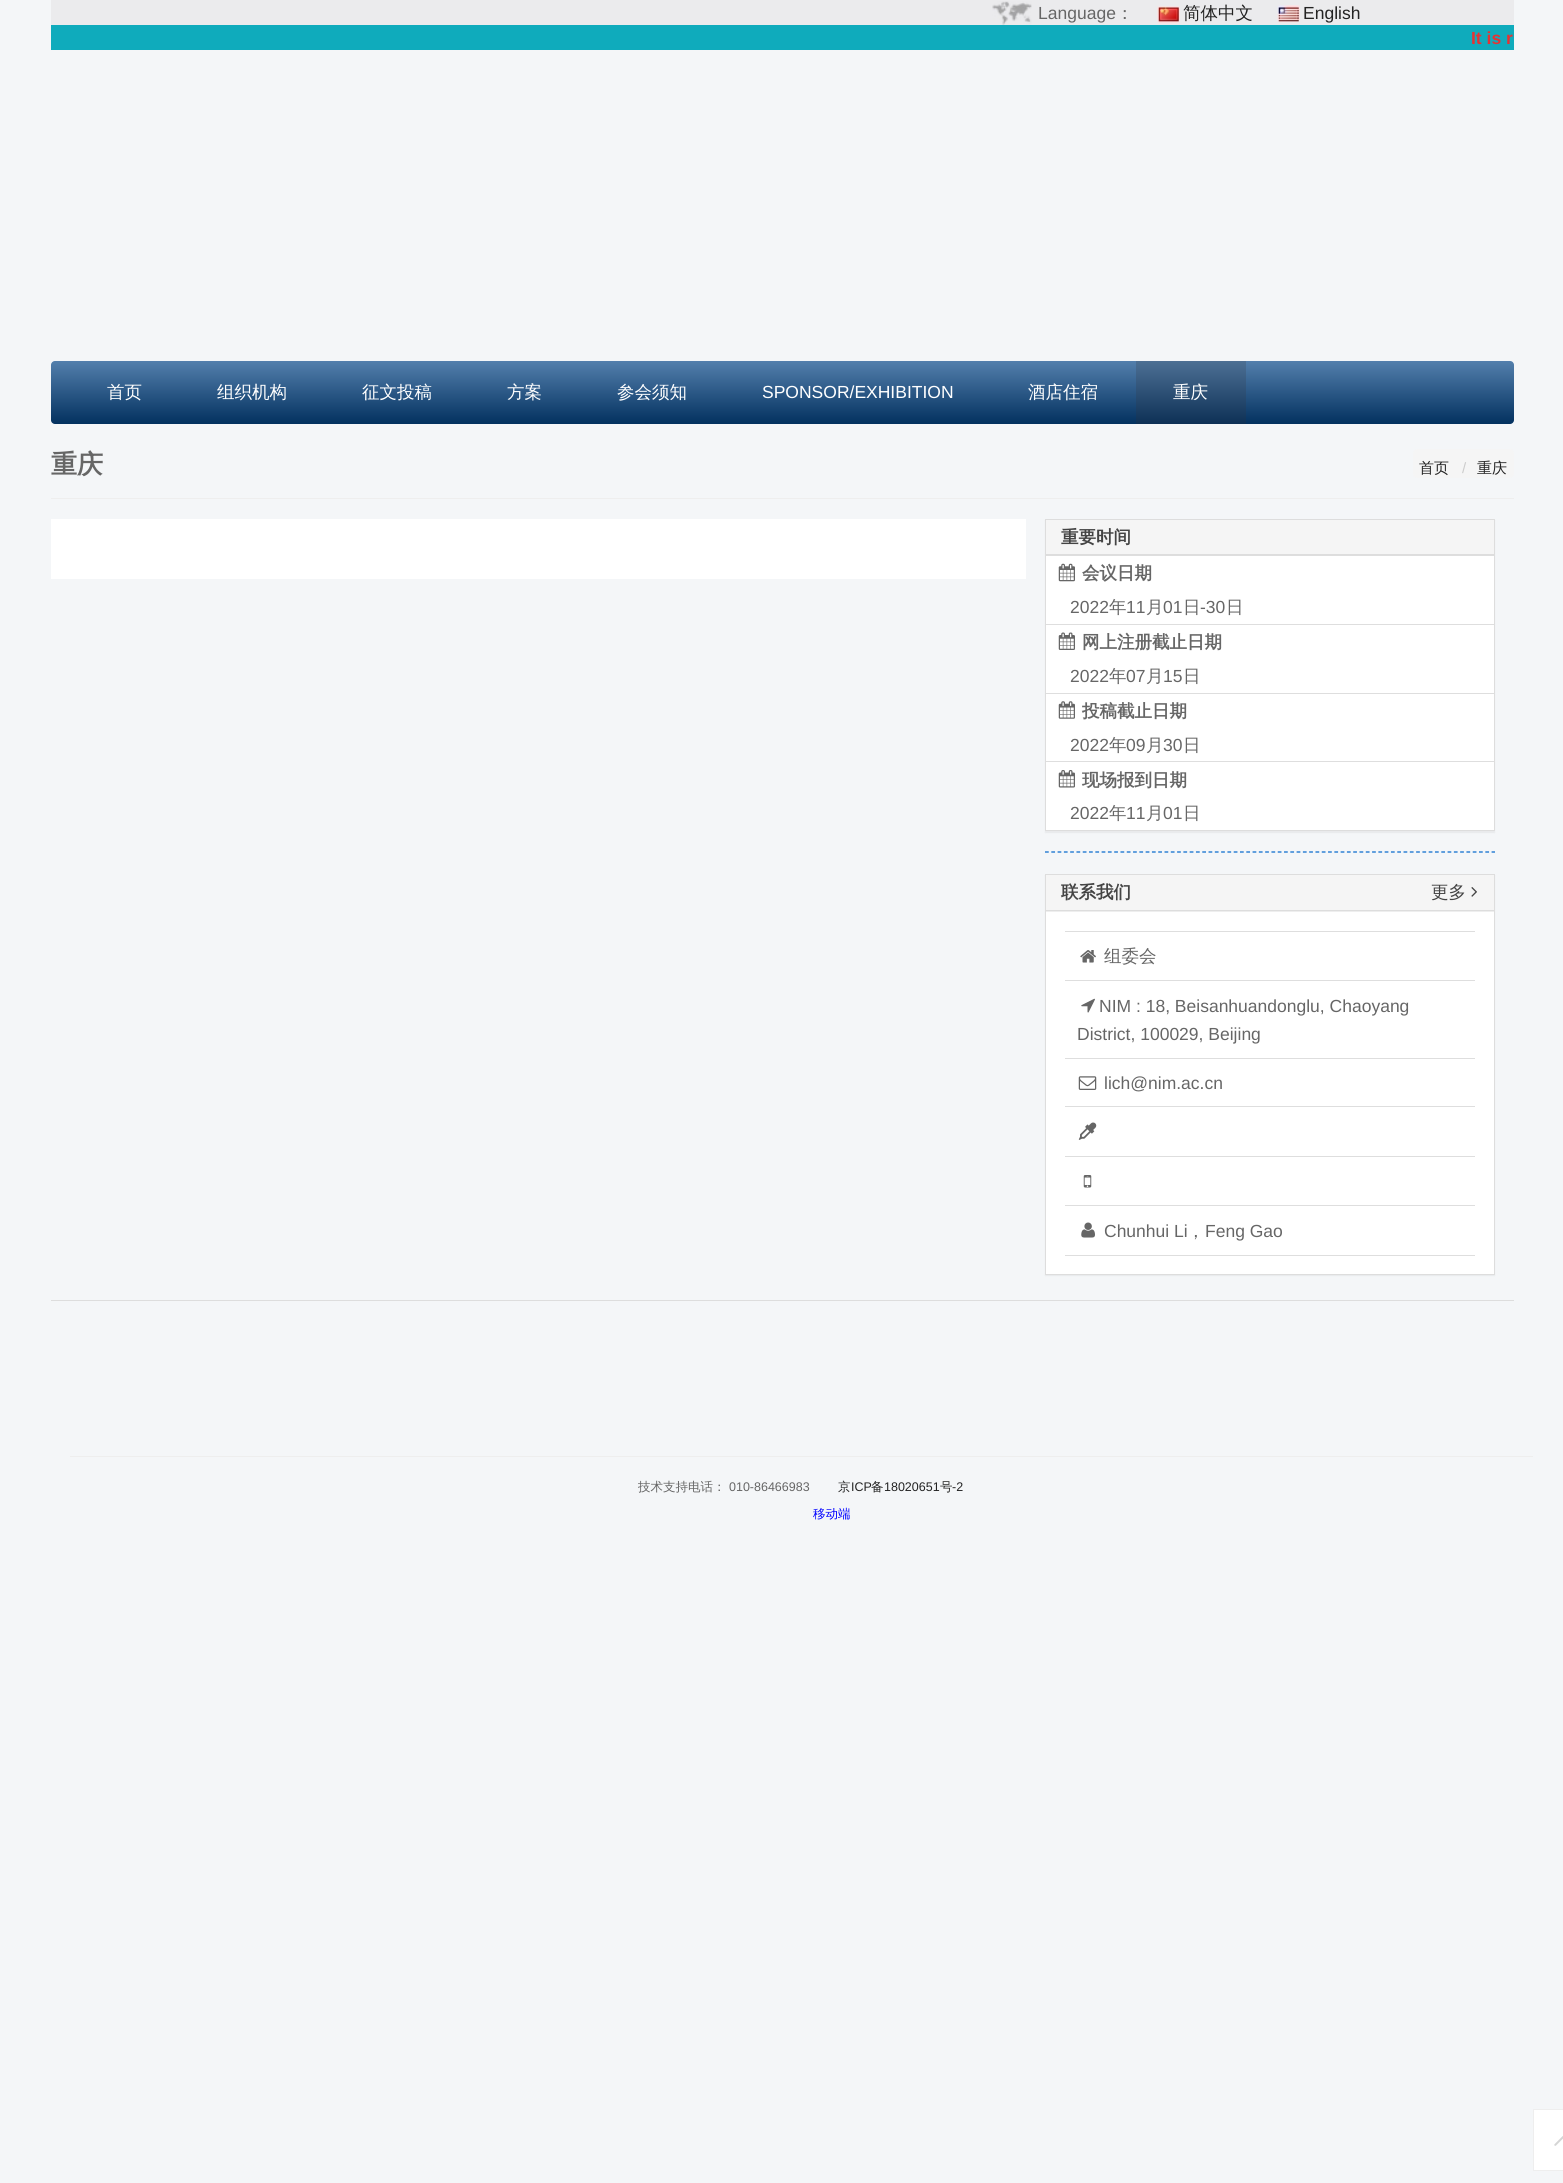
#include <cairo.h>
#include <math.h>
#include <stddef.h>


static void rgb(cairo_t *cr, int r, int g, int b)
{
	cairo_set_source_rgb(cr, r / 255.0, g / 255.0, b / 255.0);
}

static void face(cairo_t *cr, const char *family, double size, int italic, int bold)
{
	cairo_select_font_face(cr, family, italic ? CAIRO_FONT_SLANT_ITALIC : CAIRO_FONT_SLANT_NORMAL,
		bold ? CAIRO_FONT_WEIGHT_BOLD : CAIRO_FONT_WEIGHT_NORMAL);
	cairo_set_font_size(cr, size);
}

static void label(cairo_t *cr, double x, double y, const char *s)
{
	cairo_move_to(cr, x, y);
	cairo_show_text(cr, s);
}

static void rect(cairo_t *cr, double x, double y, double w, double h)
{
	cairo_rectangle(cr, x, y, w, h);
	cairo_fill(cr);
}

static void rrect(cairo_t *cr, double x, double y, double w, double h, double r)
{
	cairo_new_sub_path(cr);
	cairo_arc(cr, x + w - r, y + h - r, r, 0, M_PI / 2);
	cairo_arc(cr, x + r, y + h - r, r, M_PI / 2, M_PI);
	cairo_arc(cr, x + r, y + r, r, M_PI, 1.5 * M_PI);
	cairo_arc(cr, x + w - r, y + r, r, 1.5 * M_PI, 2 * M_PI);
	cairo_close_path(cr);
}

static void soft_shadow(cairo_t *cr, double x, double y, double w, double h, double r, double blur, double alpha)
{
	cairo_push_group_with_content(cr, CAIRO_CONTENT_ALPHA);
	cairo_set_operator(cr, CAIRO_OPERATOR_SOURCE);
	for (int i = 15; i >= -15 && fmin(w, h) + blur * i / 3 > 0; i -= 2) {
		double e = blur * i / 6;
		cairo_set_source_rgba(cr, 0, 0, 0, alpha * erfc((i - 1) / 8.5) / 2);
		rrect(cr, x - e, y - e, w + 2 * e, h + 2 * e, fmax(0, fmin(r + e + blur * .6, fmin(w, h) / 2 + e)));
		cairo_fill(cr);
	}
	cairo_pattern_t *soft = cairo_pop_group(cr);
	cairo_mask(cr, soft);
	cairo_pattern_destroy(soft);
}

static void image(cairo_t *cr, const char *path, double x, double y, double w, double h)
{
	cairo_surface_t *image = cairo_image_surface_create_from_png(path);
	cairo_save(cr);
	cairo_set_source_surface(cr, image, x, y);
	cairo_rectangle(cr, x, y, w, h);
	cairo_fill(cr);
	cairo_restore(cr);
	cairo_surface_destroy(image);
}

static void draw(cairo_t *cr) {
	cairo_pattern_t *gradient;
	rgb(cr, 244, 246, 248);
	cairo_paint(cr);
	rgb(cr, 235, 235, 237);
	rect(cr, 51, 0, 1463, 25);
	image(cr, "image0.png", 992, 1, 40, 24);
	face(cr, "Liberation Sans", 17.5, 0, 0);
	rgb(cr, 102, 102, 102);
	label(cr, 1038, 19, "Language");
	face(cr, "WenQuanYi Zen Hei Medium", 17.5, 0, 0);
	label(cr, 1116, 19, "：");
	image(cr, "image1.png", 1157, 6, 23, 18);
	rgb(cr, 35, 35, 35);
	label(cr, 1183, 19, "简体中文");
	image(cr, "image2.png", 1277, 5, 23, 18);
	face(cr, "Liberation Sans", 17.5, 0, 0);
	label(cr, 1303, 19, "English");
	rgb(cr, 15, 171, 188);
	rect(cr, 51, 25, 1463, 25);
	face(cr, "Liberation Sans", 17.5, 0, 1);
	rgb(cr, 229, 51, 51);
	label(cr, 1471, 44, "It is r");
	gradient = cairo_pattern_create_linear(783, 361, 783, 424);
	cairo_pattern_add_color_stop_rgba(gradient, 0, 0.325, 0.498, 0.675, 1);
	cairo_pattern_add_color_stop_rgba(gradient, 1, 0.012, 0.192, 0.373, 1);
	cairo_set_source(cr, gradient);
	cairo_pattern_destroy(gradient);
	rrect(cr, 51, 361, 1463, 63, 4);
	cairo_fill(cr);
	gradient = cairo_pattern_create_linear(783, 361, 783, 424);
	cairo_pattern_add_color_stop_rgba(gradient, 0, 0.302, 0.439, 0.58, 1);
	cairo_pattern_add_color_stop_rgba(gradient, 1, 0.051, 0.192, 0.337, 1);
	cairo_set_source(cr, gradient);
	cairo_pattern_destroy(gradient);
	rect(cr, 1136, 361, 110, 63);
	face(cr, "WenQuanYi Zen Hei Medium", 17.5, 0, 0);
	rgb(cr, 255, 255, 255);
	label(cr, 107, 398, "首页");
	label(cr, 217, 398, "组织机构");
	label(cr, 362, 398, "征文投稿");
	label(cr, 507, 398, "方案");
	label(cr, 617, 398, "参会须知");
	face(cr, "Liberation Sans", 17.5, 0, 0);
	label(cr, 762, 398, "SPONSOR/EXHIBITION");
	face(cr, "WenQuanYi Zen Hei Medium", 17.5, 0, 0);
	label(cr, 1028, 398, "酒店住宿");
	label(cr, 1173, 398, "重庆");
	face(cr, "WenQuanYi Zen Hei", 26, 0, 1);
	rgb(cr, 102, 102, 102);
	label(cr, 51, 473, "重庆");
	rgb(cr, 245, 245, 245);
	rrect(cr, 1413, 449, 101, 29, 4);
	cairo_fill(cr);
	face(cr, "WenQuanYi Zen Hei Medium", 15, 0, 0);
	rgb(cr, 35, 35, 35);
	label(cr, 1419, 473, "首页");
	face(cr, "Liberation Sans", 15, 0, 0);
	rgb(cr, 204, 204, 204);
	label(cr, 1462, 473, "/");
	face(cr, "WenQuanYi Zen Hei Medium", 15, 0, 0);
	rgb(cr, 35, 35, 35);
	label(cr, 1477, 473, "重庆");
	rgb(cr, 238, 238, 238);
	rect(cr, 51, 498, 1463, 1);
	rgb(cr, 255, 255, 255);
	rect(cr, 51, 519, 975, 60);
	rgb(cr, 0, 0, 0);
	soft_shadow(cr, 1045, 520, 450, 313, 0, 0.5, 0.05);
	rgb(cr, 255, 255, 255);
	rect(cr, 1046, 556, 448, 274);
	cairo_rectangle(cr, 1045.5, 519.5, 449, 311);
	rgb(cr, 221, 221, 221);
	cairo_set_line_width(cr, 1);
	cairo_stroke(cr);
	rgb(cr, 245, 245, 245);
	rect(cr, 1046, 520, 448, 34);
	rgb(cr, 221, 221, 221);
	rect(cr, 1046, 554, 448, 1);
	face(cr, "WenQuanYi Zen Hei", 17.5, 0, 1);
	rgb(cr, 68, 68, 68);
	label(cr, 1061, 543, "重要时间");
	rgb(cr, 222, 222, 222);
	rect(cr, 1046, 555, 448, 1);
	rect(cr, 1046, 624, 448, 1);
	image(cr, "image3.png", 1058, 563, 17, 19);
	rgb(cr, 102, 102, 102);
	label(cr, 1082, 579, "会议日期");
	face(cr, "Liberation Sans", 17.5, 0, 0);
	label(cr, 1070, 613, "2022");
	face(cr, "WenQuanYi Zen Hei Medium", 17.5, 0, 0);
	label(cr, 1109, 613, "年");
	face(cr, "Liberation Sans", 17.5, 0, 0);
	label(cr, 1126, 613, "11");
	face(cr, "WenQuanYi Zen Hei Medium", 17.5, 0, 0);
	label(cr, 1146, 613, "月");
	face(cr, "Liberation Sans", 17.5, 0, 0);
	label(cr, 1163, 613, "01");
	face(cr, "WenQuanYi Zen Hei Medium", 17.5, 0, 0);
	label(cr, 1183, 613, "日");
	face(cr, "Liberation Sans", 17.5, 0, 0);
	label(cr, 1200, 613, "-30");
	face(cr, "WenQuanYi Zen Hei Medium", 17.5, 0, 0);
	label(cr, 1226, 613, "日");
	rgb(cr, 222, 222, 222);
	rect(cr, 1046, 693, 448, 1);
	image(cr, "image4.png", 1058, 632, 17, 18);
	face(cr, "WenQuanYi Zen Hei", 17.5, 0, 1);
	rgb(cr, 102, 102, 102);
	label(cr, 1082, 648, "网上注册截止日期");
	face(cr, "Liberation Sans", 17.5, 0, 0);
	label(cr, 1070, 682, "2022");
	face(cr, "WenQuanYi Zen Hei Medium", 17.5, 0, 0);
	label(cr, 1109, 682, "年");
	face(cr, "Liberation Sans", 17.5, 0, 0);
	label(cr, 1126, 682, "07");
	face(cr, "WenQuanYi Zen Hei Medium", 17.5, 0, 0);
	label(cr, 1146, 682, "月");
	face(cr, "Liberation Sans", 17.5, 0, 0);
	label(cr, 1163, 682, "15");
	face(cr, "WenQuanYi Zen Hei Medium", 17.5, 0, 0);
	label(cr, 1183, 682, "日");
	rgb(cr, 222, 222, 222);
	rect(cr, 1046, 761, 448, 1);
	image(cr, "image5.png", 1058, 701, 17, 18);
	face(cr, "WenQuanYi Zen Hei", 17.5, 0, 1);
	rgb(cr, 102, 102, 102);
	label(cr, 1082, 717, "投稿截止日期");
	face(cr, "Liberation Sans", 17.5, 0, 0);
	label(cr, 1070, 751, "2022");
	face(cr, "WenQuanYi Zen Hei Medium", 17.5, 0, 0);
	label(cr, 1109, 751, "年");
	face(cr, "Liberation Sans", 17.5, 0, 0);
	label(cr, 1126, 751, "09");
	face(cr, "WenQuanYi Zen Hei Medium", 17.5, 0, 0);
	label(cr, 1146, 751, "月");
	face(cr, "Liberation Sans", 17.5, 0, 0);
	label(cr, 1163, 751, "30");
	face(cr, "WenQuanYi Zen Hei Medium", 17.5, 0, 0);
	label(cr, 1183, 751, "日");
	image(cr, "image6.png", 1058, 770, 17, 18);
	face(cr, "WenQuanYi Zen Hei", 17.5, 0, 1);
	label(cr, 1082, 786, "现场报到日期");
	face(cr, "Liberation Sans", 17.5, 0, 0);
	label(cr, 1070, 819, "2022");
	face(cr, "WenQuanYi Zen Hei Medium", 17.5, 0, 0);
	label(cr, 1109, 819, "年");
	face(cr, "Liberation Sans", 17.5, 0, 0);
	label(cr, 1126, 819, "11");
	face(cr, "WenQuanYi Zen Hei Medium", 17.5, 0, 0);
	label(cr, 1146, 819, "月");
	face(cr, "Liberation Sans", 17.5, 0, 0);
	label(cr, 1163, 819, "01");
	face(cr, "WenQuanYi Zen Hei Medium", 17.5, 0, 0);
	label(cr, 1183, 819, "日");
	cairo_new_path(cr);
	cairo_move_to(cr, 1045, 852);
	cairo_line_to(cr, 1495, 852);
	rgb(cr, 0, 102, 204);
	cairo_set_line_width(cr, 1.2);
	cairo_set_dash(cr, (double[]){3.75, 2.54}, 2, 0);
	cairo_stroke(cr);
	rgb(cr, 0, 0, 0);
	soft_shadow(cr, 1045, 875, 450, 401, 0, 0.5, 0.05);
	rgb(cr, 255, 255, 255);
	rect(cr, 1046, 912, 448, 362);
	cairo_rectangle(cr, 1045.5, 874.5, 449, 400);
	rgb(cr, 221, 221, 221);
	cairo_set_line_width(cr, 1);
	cairo_set_dash(cr, NULL, 0, 0);
	cairo_stroke(cr);
	rgb(cr, 245, 245, 245);
	rect(cr, 1046, 875, 448, 35);
	rgb(cr, 221, 221, 221);
	rect(cr, 1046, 910, 448, 1);
	face(cr, "WenQuanYi Zen Hei", 17.5, 0, 1);
	rgb(cr, 68, 68, 68);
	label(cr, 1061, 898, "联系我们");
	face(cr, "WenQuanYi Zen Hei Medium", 17.5, 0, 0);
	label(cr, 1431, 898, "更多");
	image(cr, "image7.png", 1471, 887, 6, 10);
	rgb(cr, 238, 238, 238);
	rect(cr, 1046, 911, 448, 1);
	rgb(cr, 222, 222, 222);
	rect(cr, 1065, 931, 410, 1);
	rect(cr, 1065, 980, 410, 1);
	image(cr, "image8.png", 1080, 950, 16, 13);
	rgb(cr, 102, 102, 102);
	label(cr, 1104, 962, "组委会");
	rgb(cr, 222, 222, 222);
	rect(cr, 1065, 1058, 410, 1);
	image(cr, "image9.png", 1081, 998, 14, 15);
	face(cr, "Liberation Sans", 17.5, 0, 0);
	rgb(cr, 102, 102, 102);
	label(cr, 1099, 1012, "NIM : 18, Beisanhuandonglu, Chaoyang");
	label(cr, 1077, 1040, "District, 100029, Beijing");
	rgb(cr, 222, 222, 222);
	rect(cr, 1065, 1106, 410, 1);
	image(cr, "image10.png", 1078, 1076, 19, 14);
	rgb(cr, 102, 102, 102);
	label(cr, 1104, 1089, "lich@nim.ac.cn");
	rgb(cr, 222, 222, 222);
	rect(cr, 1065, 1156, 410, 1);
	image(cr, "image11.png", 1078, 1122, 19, 18);
	rect(cr, 1065, 1205, 410, 1);
	image(cr, "image12.png", 1083, 1175, 9, 13);
	rect(cr, 1065, 1255, 410, 1);
	image(cr, "image13.png", 1081, 1222, 14, 16);
	rgb(cr, 102, 102, 102);
	label(cr, 1104, 1237, "Chunhui Li");
	face(cr, "WenQuanYi Zen Hei Medium", 17.5, 0, 0);
	label(cr, 1187, 1237, "，");
	face(cr, "Liberation Sans", 17.5, 0, 0);
	label(cr, 1205, 1237, "Feng Gao");
	rgb(cr, 221, 221, 221);
	rect(cr, 51, 1300, 1463, 1);
	rgb(cr, 238, 238, 238);
	rect(cr, 70, 1456, 1463, 1);
	face(cr, "WenQuanYi Zen Hei Medium", 12.5, 0, 0);
	rgb(cr, 102, 102, 102);
	label(cr, 638, 1491, "技术支持电话：");
	face(cr, "Liberation Sans", 12.5, 0, 0);
	label(cr, 729, 1491, "010-86466983");
	face(cr, "WenQuanYi Zen Hei Medium", 12.5, 0, 0);
	rgb(cr, 35, 35, 35);
	label(cr, 838, 1491, "京");
	face(cr, "Liberation Sans", 12.5, 0, 0);
	label(cr, 851, 1491, "ICP");
	face(cr, "WenQuanYi Zen Hei Medium", 12.5, 0, 0);
	label(cr, 871, 1491, "备");
	face(cr, "Liberation Sans", 12.5, 0, 0);
	label(cr, 884, 1491, "18020651");
	face(cr, "WenQuanYi Zen Hei Medium", 12.5, 0, 0);
	label(cr, 940, 1491, "号");
	face(cr, "Liberation Sans", 12.5, 0, 0);
	label(cr, 952, 1491, "-2");
	face(cr, "WenQuanYi Zen Hei Medium", 12.5, 0, 0);
	rgb(cr, 0, 0, 255);
	label(cr, 813, 1518, "移动端");
	rgb(cr, 255, 255, 255);
	cairo_rectangle(cr, 1533.5, 2109.5, 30, 61);
	cairo_fill_preserve(cr);
	rgb(cr, 238, 238, 238);
	cairo_stroke(cr);
	image(cr, "image14.png", 1554, 2136, 9, 10);
}

int main(void) {
	cairo_surface_t *surface = cairo_image_surface_create(CAIRO_FORMAT_RGB24, 1563, 2183);
	cairo_t *cr = cairo_create(surface);
	cairo_font_options_t *options = cairo_font_options_create();
	cairo_font_options_set_hint_metrics(options, CAIRO_HINT_METRICS_OFF);
	cairo_font_options_set_hint_style(options, CAIRO_HINT_STYLE_NONE);
	cairo_set_font_options(cr, options);
	cairo_set_miter_limit(cr, 4);
	draw(cr);
	cairo_surface_write_to_png(surface, "render.png");
	cairo_font_options_destroy(options);
	cairo_destroy(cr);
	cairo_surface_destroy(surface);
	return 0;
}
